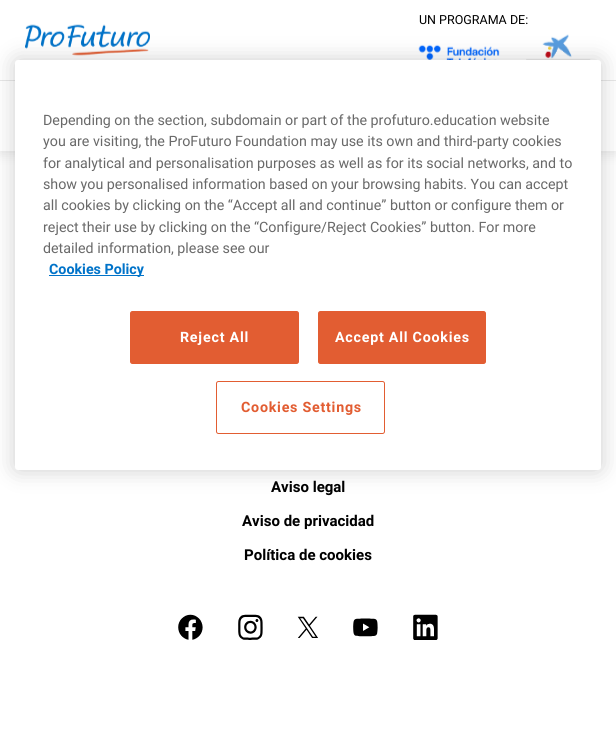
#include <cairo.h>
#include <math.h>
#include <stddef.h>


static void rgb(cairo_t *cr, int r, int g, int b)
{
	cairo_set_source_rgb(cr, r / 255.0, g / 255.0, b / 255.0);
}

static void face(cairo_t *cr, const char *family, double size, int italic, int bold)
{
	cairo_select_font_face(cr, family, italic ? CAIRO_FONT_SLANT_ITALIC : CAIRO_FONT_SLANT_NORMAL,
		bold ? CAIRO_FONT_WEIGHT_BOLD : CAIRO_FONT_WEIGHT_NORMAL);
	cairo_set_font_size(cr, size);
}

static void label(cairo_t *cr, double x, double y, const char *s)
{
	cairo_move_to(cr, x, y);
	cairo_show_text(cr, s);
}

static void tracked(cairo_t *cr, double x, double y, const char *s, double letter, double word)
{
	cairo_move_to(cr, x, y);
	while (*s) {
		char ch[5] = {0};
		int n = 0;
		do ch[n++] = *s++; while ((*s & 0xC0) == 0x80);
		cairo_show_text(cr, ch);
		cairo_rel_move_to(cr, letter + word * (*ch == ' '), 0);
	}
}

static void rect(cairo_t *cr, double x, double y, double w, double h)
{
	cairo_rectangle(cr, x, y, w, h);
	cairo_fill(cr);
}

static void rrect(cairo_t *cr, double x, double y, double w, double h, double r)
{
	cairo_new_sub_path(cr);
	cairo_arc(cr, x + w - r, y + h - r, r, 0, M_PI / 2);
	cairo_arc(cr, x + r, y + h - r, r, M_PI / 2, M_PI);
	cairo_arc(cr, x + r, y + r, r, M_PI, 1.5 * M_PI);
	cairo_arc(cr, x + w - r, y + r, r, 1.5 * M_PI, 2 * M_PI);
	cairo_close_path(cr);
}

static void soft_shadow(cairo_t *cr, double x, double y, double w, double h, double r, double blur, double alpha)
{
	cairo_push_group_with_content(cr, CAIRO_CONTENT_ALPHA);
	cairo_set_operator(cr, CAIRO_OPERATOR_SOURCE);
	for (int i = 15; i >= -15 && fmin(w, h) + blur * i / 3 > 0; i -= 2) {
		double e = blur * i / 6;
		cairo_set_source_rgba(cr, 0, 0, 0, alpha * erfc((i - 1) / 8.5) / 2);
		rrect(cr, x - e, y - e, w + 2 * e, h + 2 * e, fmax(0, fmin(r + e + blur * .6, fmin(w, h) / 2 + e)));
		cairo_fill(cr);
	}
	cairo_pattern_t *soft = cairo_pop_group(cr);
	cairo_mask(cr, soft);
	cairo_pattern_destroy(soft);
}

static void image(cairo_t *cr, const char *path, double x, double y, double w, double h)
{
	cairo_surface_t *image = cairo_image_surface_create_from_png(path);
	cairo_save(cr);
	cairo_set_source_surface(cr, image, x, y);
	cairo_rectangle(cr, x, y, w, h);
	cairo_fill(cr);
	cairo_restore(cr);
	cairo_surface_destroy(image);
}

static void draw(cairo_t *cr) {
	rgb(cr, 255, 255, 255);
	cairo_paint(cr);
	rgb(cr, 0, 0, 0);
	soft_shadow(cr, 0, 3, 616, 151, 0, 6, 0.1);
	rgb(cr, 255, 255, 255);
	rect(cr, 0, 0, 616, 151);
	face(cr, "Heebo", 12.5, 0, 0);
	rgb(cr, 0, 0, 0);
	label(cr, 419, 24, "UN PROGRAMA DE:");
	image(cr, "image0.png", 418, 44, 82, 16);
	image(cr, "image1.png", 526, 34, 65, 26);
	image(cr, "image2.png", 25, 24, 125, 32);
	rgb(cr, 231, 231, 231);
	rect(cr, 0, 80, 616, 1);
	rgb(cr, 0, 0, 0);
	soft_shadow(cr, 15, 60, 586, 410, 3, 11, 0.2);
	rgb(cr, 255, 255, 255);
	rrect(cr, 15, 60, 586, 410, 3);
	cairo_fill(cr);
	face(cr, "Heebo", 14.25, 0, 0);
	rgb(cr, 105, 105, 105);
	label(cr, 43, 125, "Depending on the section, subdomain or part of the profuturo.education website");
	label(cr, 43, 146, "you are visiting, the ProFuturo Foundation may use its own and third-party cookies");
	label(cr, 43, 168, "for analytical and personalisation purposes as well as for its social networks, and to");
	label(cr, 43, 189, "show you personalised information based on your browsing habits. You can accept");
	label(cr, 43, 210, "all cookies by clicking on the “Accept all and continue” button or configure them or");
	label(cr, 43, 232, "reject their use by clicking on the “Configure/Reject Cookies” button. For more");
	label(cr, 43, 253, "detailed information, please see our");
	rgb(cr, 0, 115, 201);
	rect(cr, 49, 275, 95, 1);
	face(cr, "Heebo", 14.25, 0, 1);
	label(cr, 49, 274, "Cookies Policy");
	rgb(cr, 226, 93, 50);
	rrect(cr, 130.5, 311.5, 168, 52, 2);
	cairo_fill_preserve(cr);
	cairo_set_line_width(cr, 1);
	cairo_stroke(cr);
	rgb(cr, 255, 255, 255);
	tracked(cr, 180, 342, "Reject All", 0.75, 0);
	rgb(cr, 226, 93, 50);
	rrect(cr, 318.5, 311.5, 167, 52, 2);
	cairo_fill_preserve(cr);
	cairo_stroke(cr);
	rgb(cr, 255, 255, 255);
	tracked(cr, 335, 342, "Accept All Cookies", 0.75, 0);
	rrect(cr, 216.5, 381.5, 168, 52, 2);
	rgb(cr, 226, 93, 50);
	cairo_stroke(cr);
	tracked(cr, 241, 412, "Cookies Settings", 0.75, 0);
	face(cr, "Heebo", 15, 0, 1);
	rgb(cr, 0, 0, 0);
	label(cr, 271, 492, "Aviso legal");
	label(cr, 242, 526, "Aviso de privacidad");
	label(cr, 244, 560, "Política de cookies");
	image(cr, "image3.png", 178, 614, 25, 26);
	image(cr, "image4.png", 238, 614, 25, 26);
	image(cr, "image5.png", 297, 616, 21, 22);
	image(cr, "image6.png", 353, 618, 25, 19);
	image(cr, "image7.png", 413, 614, 25, 26);
}

int main(void) {
	cairo_surface_t *surface = cairo_image_surface_create(CAIRO_FORMAT_RGB24, 616, 756);
	cairo_t *cr = cairo_create(surface);
	cairo_font_options_t *options = cairo_font_options_create();
	cairo_font_options_set_hint_metrics(options, CAIRO_HINT_METRICS_OFF);
	cairo_font_options_set_hint_style(options, CAIRO_HINT_STYLE_NONE);
	cairo_set_font_options(cr, options);
	cairo_set_miter_limit(cr, 4);
	draw(cr);
	cairo_surface_write_to_png(surface, "render.png");
	cairo_font_options_destroy(options);
	cairo_destroy(cr);
	cairo_surface_destroy(surface);
	return 0;
}
